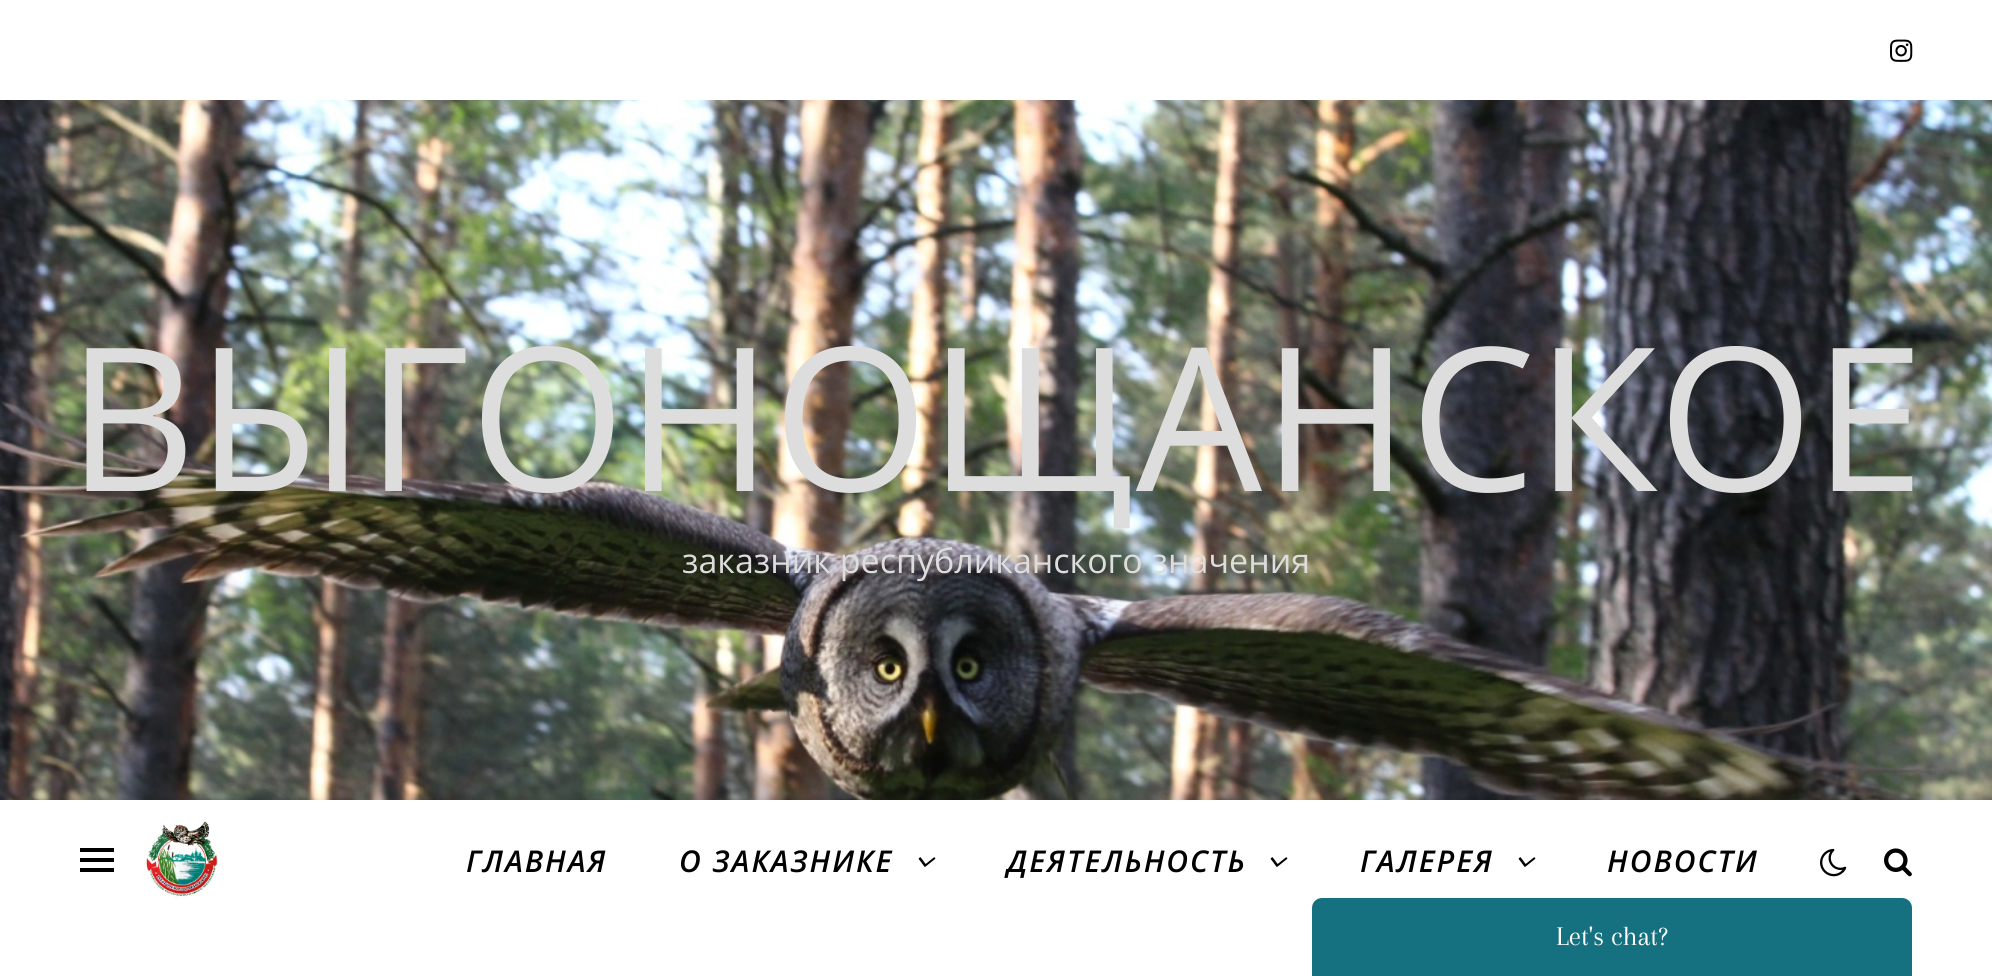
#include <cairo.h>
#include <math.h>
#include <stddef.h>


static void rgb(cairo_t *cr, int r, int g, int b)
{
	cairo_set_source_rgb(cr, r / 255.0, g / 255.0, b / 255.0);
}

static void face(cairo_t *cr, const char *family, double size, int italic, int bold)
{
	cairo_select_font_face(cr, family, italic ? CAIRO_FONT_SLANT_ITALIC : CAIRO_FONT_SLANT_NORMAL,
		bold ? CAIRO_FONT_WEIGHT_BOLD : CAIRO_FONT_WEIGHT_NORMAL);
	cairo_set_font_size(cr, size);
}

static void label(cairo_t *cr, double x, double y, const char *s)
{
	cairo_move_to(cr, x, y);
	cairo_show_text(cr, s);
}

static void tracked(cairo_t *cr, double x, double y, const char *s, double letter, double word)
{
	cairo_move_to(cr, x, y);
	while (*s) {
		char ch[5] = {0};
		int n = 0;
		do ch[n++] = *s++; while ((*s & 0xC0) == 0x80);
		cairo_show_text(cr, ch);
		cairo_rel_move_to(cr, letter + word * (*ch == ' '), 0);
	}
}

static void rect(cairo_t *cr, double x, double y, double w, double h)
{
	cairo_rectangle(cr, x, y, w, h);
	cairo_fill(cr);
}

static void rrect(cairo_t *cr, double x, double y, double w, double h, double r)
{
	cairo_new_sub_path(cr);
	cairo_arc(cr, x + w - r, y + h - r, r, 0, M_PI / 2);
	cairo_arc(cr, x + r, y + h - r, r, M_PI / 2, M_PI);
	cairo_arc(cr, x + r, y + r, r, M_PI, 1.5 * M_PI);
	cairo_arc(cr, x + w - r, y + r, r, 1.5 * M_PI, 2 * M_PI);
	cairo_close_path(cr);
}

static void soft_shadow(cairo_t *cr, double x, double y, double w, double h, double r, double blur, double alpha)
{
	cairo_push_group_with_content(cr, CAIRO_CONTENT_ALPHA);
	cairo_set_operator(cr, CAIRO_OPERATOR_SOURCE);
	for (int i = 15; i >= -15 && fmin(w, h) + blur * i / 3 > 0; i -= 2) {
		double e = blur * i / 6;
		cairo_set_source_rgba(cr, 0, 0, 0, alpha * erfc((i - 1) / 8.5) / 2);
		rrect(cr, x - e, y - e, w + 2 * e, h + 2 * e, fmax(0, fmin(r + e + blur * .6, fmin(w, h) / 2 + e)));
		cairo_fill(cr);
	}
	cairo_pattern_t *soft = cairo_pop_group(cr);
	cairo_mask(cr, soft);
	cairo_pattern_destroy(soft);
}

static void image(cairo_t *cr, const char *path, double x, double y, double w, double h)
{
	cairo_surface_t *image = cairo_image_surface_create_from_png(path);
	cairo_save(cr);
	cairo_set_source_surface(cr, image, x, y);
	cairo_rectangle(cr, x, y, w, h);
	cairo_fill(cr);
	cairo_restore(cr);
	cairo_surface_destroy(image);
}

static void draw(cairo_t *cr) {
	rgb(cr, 255, 255, 255);
	cairo_paint(cr);
	image(cr, "image0.png", 1890, 39, 23, 23);
	image(cr, "image1.png", 0, 100, 1992, 700);
	face(cr, "Open Sans", 200, 0, 0);
	rgb(cr, 221, 221, 221);
	label(cr, 67, 491, "ВЫГОНОЩАНСКОЕ");
	face(cr, "Open Sans", 34, 0, 0);
	label(cr, 682, 573, "заказник республиканского значения");
	rgb(cr, 0, 0, 0);
	soft_shadow(cr, 0, 802, 1992, 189, 0, 5, 0.1);
	rgb(cr, 255, 255, 255);
	rect(cr, 0, 800, 1992, 176);
	rgb(cr, 0, 0, 0);
	rect(cr, 80, 848, 34, 4);
	rect(cr, 80, 858, 34, 4);
	rect(cr, 80, 868, 34, 4);
	image(cr, "image2.png", 146, 821, 72, 78);
	face(cr, "Open Sans SemiBold", 30, 1, 0);
	tracked(cr, 466, 872, "ГЛАВНАЯ", 2, 0);
	tracked(cr, 679, 872, "О ЗАКАЗНИКЕ", 2, 0);
	image(cr, "image3.png", 918, 857, 18, 10);
	tracked(cr, 1007, 872, "ДЕЯТЕЛЬНОСТЬ", 2, 0);
	image(cr, "image3.png", 1270, 857, 18, 10);
	tracked(cr, 1360, 872, "ГАЛЕРЕЯ", 2, 0);
	image(cr, "image3.png", 1518, 857, 18, 10);
	tracked(cr, 1607, 872, "НОВОСТИ", 2, 0);
	image(cr, "image4.png", 1820, 848, 27, 29);
	image(cr, "image5.png", 1884, 848, 28, 29);
	cairo_new_path(cr);
	cairo_move_to(cr, 1322, 900);
	cairo_line_to(cr, 1902, 900);
	cairo_curve_to(cr, 1906.5, 900, 1910, 903.5, 1910, 908);
	cairo_line_to(cr, 1910, 974);
	cairo_line_to(cr, 1314, 974);
	cairo_line_to(cr, 1314, 908);
	cairo_curve_to(cr, 1314, 903.5, 1317.5, 900, 1322, 900);
	cairo_close_path(cr);
	rgb(cr, 21, 113, 127);
	cairo_set_line_width(cr, 4);
	cairo_stroke(cr);
	rect(cr, 1316, 902, 592, 70);
	face(cr, "Arapey", 28, 0, 0);
	rgb(cr, 255, 255, 255);
	label(cr, 1556, 945, "Let's chat?");
}

int main(void) {
	cairo_surface_t *surface = cairo_image_surface_create(CAIRO_FORMAT_RGB24, 1992, 976);
	cairo_t *cr = cairo_create(surface);
	cairo_font_options_t *options = cairo_font_options_create();
	cairo_font_options_set_hint_metrics(options, CAIRO_HINT_METRICS_OFF);
	cairo_font_options_set_hint_style(options, CAIRO_HINT_STYLE_NONE);
	cairo_set_font_options(cr, options);
	cairo_set_miter_limit(cr, 4);
	draw(cr);
	cairo_surface_write_to_png(surface, "render.png");
	cairo_font_options_destroy(options);
	cairo_destroy(cr);
	cairo_surface_destroy(surface);
	return 0;
}
